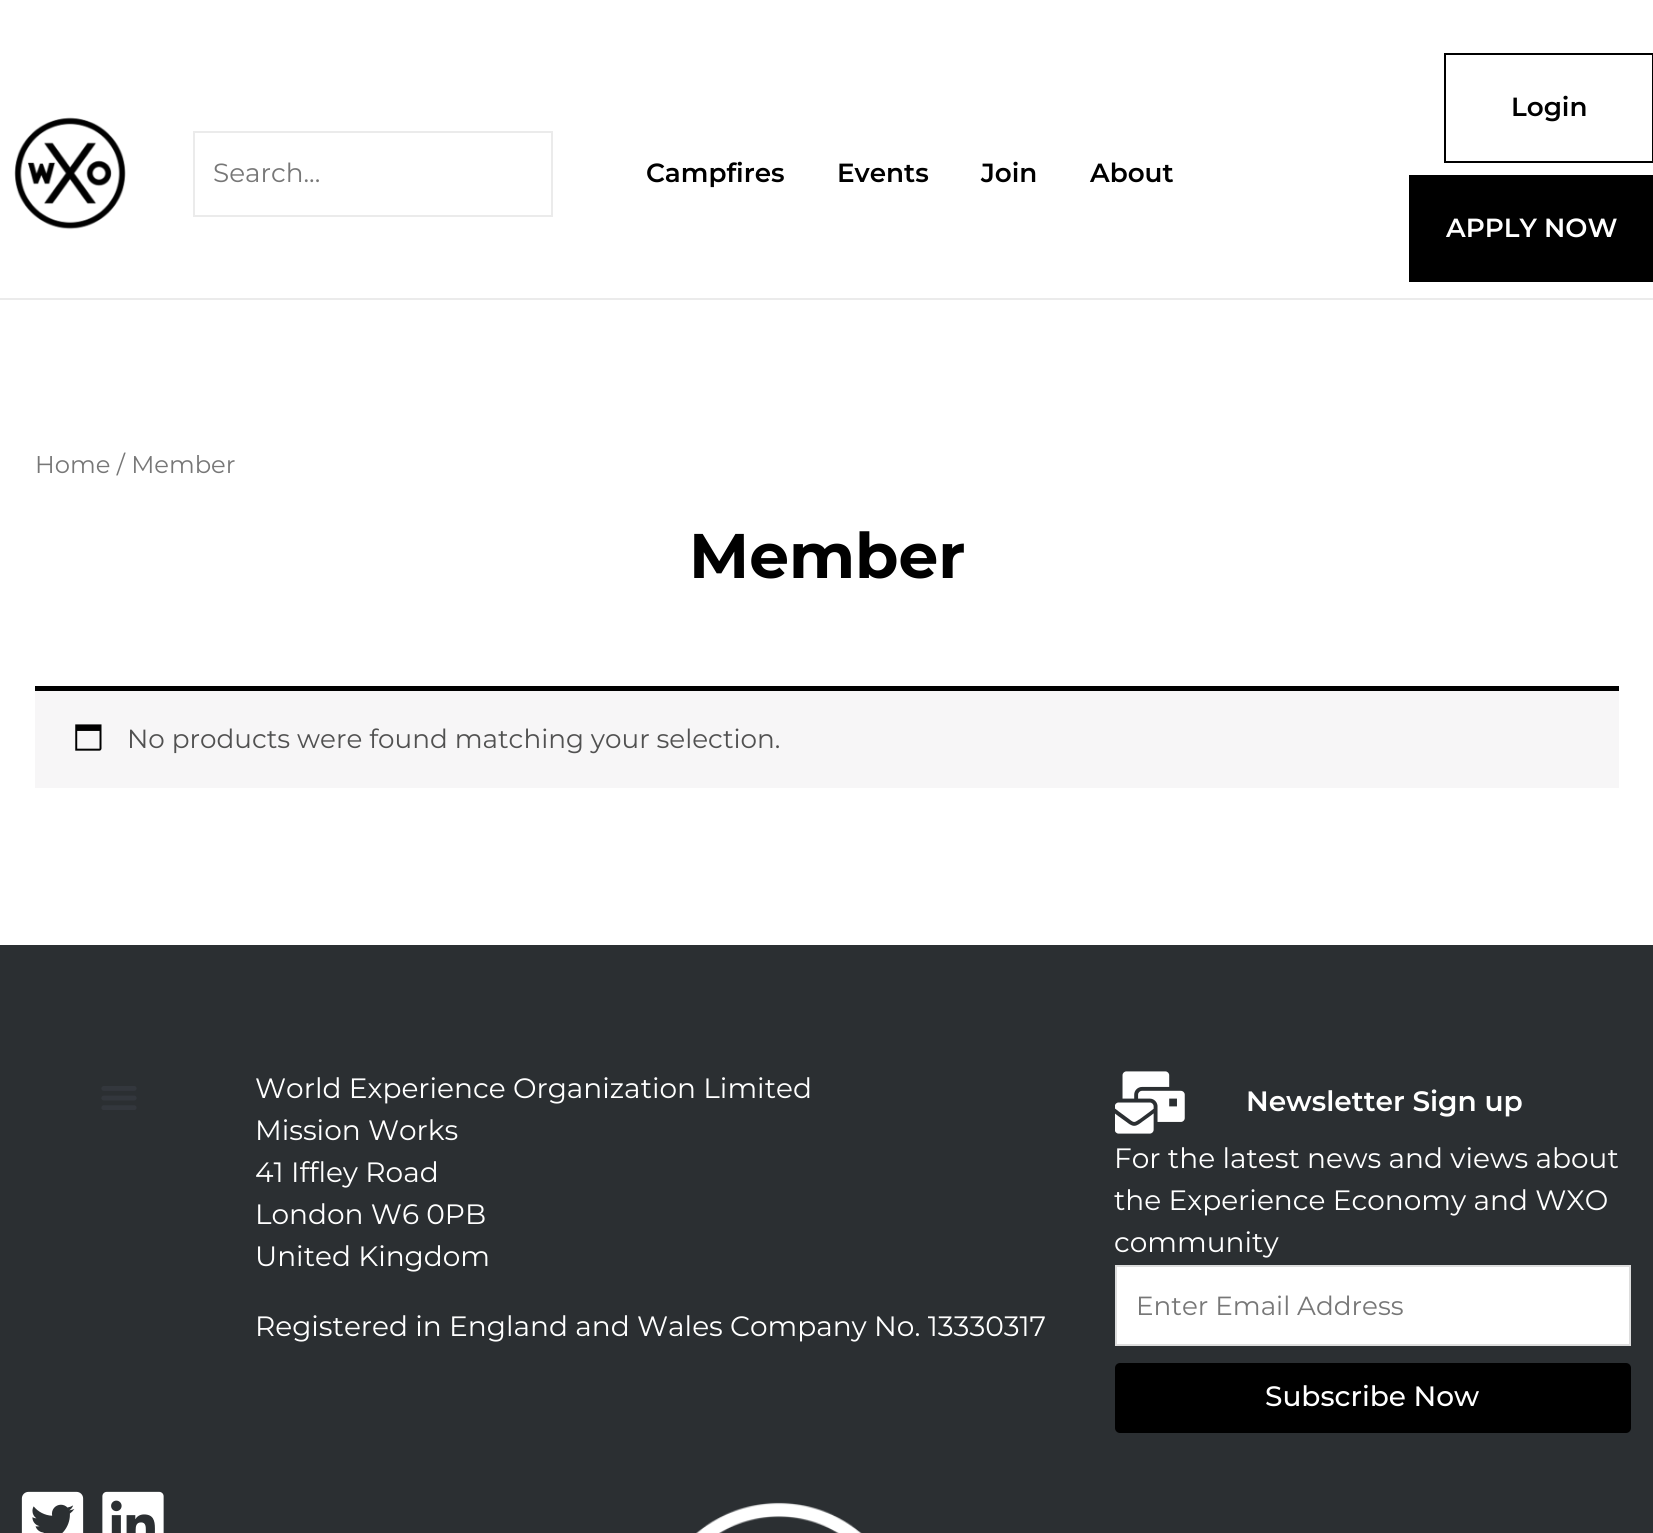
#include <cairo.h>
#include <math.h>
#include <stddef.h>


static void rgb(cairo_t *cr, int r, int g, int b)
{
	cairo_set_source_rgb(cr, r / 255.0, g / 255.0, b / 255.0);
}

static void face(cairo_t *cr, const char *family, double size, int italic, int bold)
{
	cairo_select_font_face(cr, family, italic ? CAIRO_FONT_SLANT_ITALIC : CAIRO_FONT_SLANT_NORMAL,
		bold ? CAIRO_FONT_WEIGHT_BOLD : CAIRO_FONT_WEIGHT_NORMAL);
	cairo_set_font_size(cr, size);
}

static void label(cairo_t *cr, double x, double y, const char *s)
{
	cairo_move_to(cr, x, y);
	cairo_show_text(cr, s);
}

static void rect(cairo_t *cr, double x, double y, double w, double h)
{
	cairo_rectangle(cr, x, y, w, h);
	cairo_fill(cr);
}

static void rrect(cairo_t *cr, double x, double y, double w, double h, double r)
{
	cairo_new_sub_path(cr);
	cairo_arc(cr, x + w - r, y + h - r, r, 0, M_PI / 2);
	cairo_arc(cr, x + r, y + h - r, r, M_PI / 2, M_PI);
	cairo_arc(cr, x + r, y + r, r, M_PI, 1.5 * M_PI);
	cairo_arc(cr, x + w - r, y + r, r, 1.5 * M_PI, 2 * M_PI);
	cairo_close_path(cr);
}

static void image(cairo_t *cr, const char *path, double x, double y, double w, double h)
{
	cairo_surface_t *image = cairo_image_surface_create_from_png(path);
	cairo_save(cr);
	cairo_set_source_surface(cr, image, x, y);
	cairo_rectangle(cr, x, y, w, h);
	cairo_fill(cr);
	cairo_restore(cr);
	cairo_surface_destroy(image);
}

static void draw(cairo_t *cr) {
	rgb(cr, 255, 255, 255);
	cairo_paint(cr);
	rgb(cr, 235, 235, 235);
	rect(cr, 0, 298, 1653, 2);
	image(cr, "image0.png", 14, 117, 112, 113);
	cairo_rectangle(cr, 194, 132, 358, 84);
	cairo_stroke(cr);
	face(cr, "Montserrat", 26.25, 0, 0);
	rgb(cr, 119, 119, 119);
	label(cr, 213, 182, "Search...");
	face(cr, "Montserrat SemiBold", 26.25, 0, 0);
	rgb(cr, 0, 0, 0);
	label(cr, 646, 182, "Campfires");
	label(cr, 837, 182, "Events");
	label(cr, 981, 182, "Join");
	label(cr, 1090, 182, "About");
	cairo_rectangle(cr, 1445, 54, 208, 108);
	cairo_stroke(cr);
	label(cr, 1511, 116, "Login");
	rect(cr, 1409, 175, 244, 107);
	rgb(cr, 255, 255, 255);
	label(cr, 1446, 237, "APPLY NOW");
	face(cr, "Montserrat", 24.25, 0, 0);
	rgb(cr, 119, 119, 119);
	label(cr, 35, 473, "Home / Member");
	face(cr, "Montserrat", 63, 0, 1);
	rgb(cr, 0, 0, 0);
	label(cr, 689, 578, "Member");
	rgb(cr, 247, 246, 247);
	rect(cr, 35, 691, 1584, 97);
	rgb(cr, 0, 0, 0);
	rect(cr, 35, 686, 1584, 5);
	image(cr, "image1.png", 75, 724, 27, 27);
	face(cr, "Montserrat", 26.25, 0, 0);
	rgb(cr, 81, 81, 81);
	label(cr, 127, 748, "No products were found matching your selection.");
	rgb(cr, 43, 47, 50);
	rect(cr, 0, 945, 1653, 588);
	image(cr, "image2.png", 101, 1086, 36, 24);
	face(cr, "Montserrat", 28, 0, 0);
	rgb(cr, 255, 255, 255);
	label(cr, 255, 1098, "World Experience Organization Limited");
	label(cr, 255, 1140, "Mission Works");
	label(cr, 255, 1182, "41 Iffley Road");
	label(cr, 255, 1224, "London W6 0PB");
	label(cr, 255, 1266, "United Kingdom");
	label(cr, 255, 1336, "Registered in England and Wales Company No. 13330317");
	image(cr, "image3.png", 1115, 1071, 70, 63);
	face(cr, "Montserrat SemiBold", 28, 0, 0);
	label(cr, 1246, 1111, "Newsletter Sign up");
	face(cr, "Montserrat", 28, 0, 0);
	label(cr, 1114, 1168, "For the latest news and views about");
	label(cr, 1114, 1210, "the Experience Economy and WXO");
	label(cr, 1114, 1252, "community");
	cairo_rectangle(cr, 1116, 1266, 514, 79);
	cairo_fill_preserve(cr);
	rgb(cr, 221, 221, 221);
	cairo_stroke(cr);
	face(cr, "Montserrat", 26.25, 0, 0);
	rgb(cr, 119, 119, 119);
	label(cr, 1136, 1315, "Enter Email Address");
	rgb(cr, 0, 0, 0);
	rrect(cr, 1115, 1363, 516, 70, 5);
	cairo_fill(cr);
	face(cr, "Montserrat Medium", 28, 0, 0);
	rgb(cr, 255, 255, 255);
	label(cr, 1265, 1406, "Subscribe Now");
	image(cr, "image4.png", 21, 1491, 63, 42);
	image(cr, "image5.png", 102, 1491, 62, 42);
	image(cr, "image6.png", 696, 1502, 166, 31);
}

int main(void) {
	cairo_surface_t *surface = cairo_image_surface_create(CAIRO_FORMAT_RGB24, 1653, 1533);
	cairo_t *cr = cairo_create(surface);
	cairo_font_options_t *options = cairo_font_options_create();
	cairo_font_options_set_hint_metrics(options, CAIRO_HINT_METRICS_OFF);
	cairo_font_options_set_hint_style(options, CAIRO_HINT_STYLE_NONE);
	cairo_set_font_options(cr, options);
	cairo_set_miter_limit(cr, 4);
	draw(cr);
	cairo_surface_write_to_png(surface, "render.png");
	cairo_font_options_destroy(options);
	cairo_destroy(cr);
	cairo_surface_destroy(surface);
	return 0;
}
